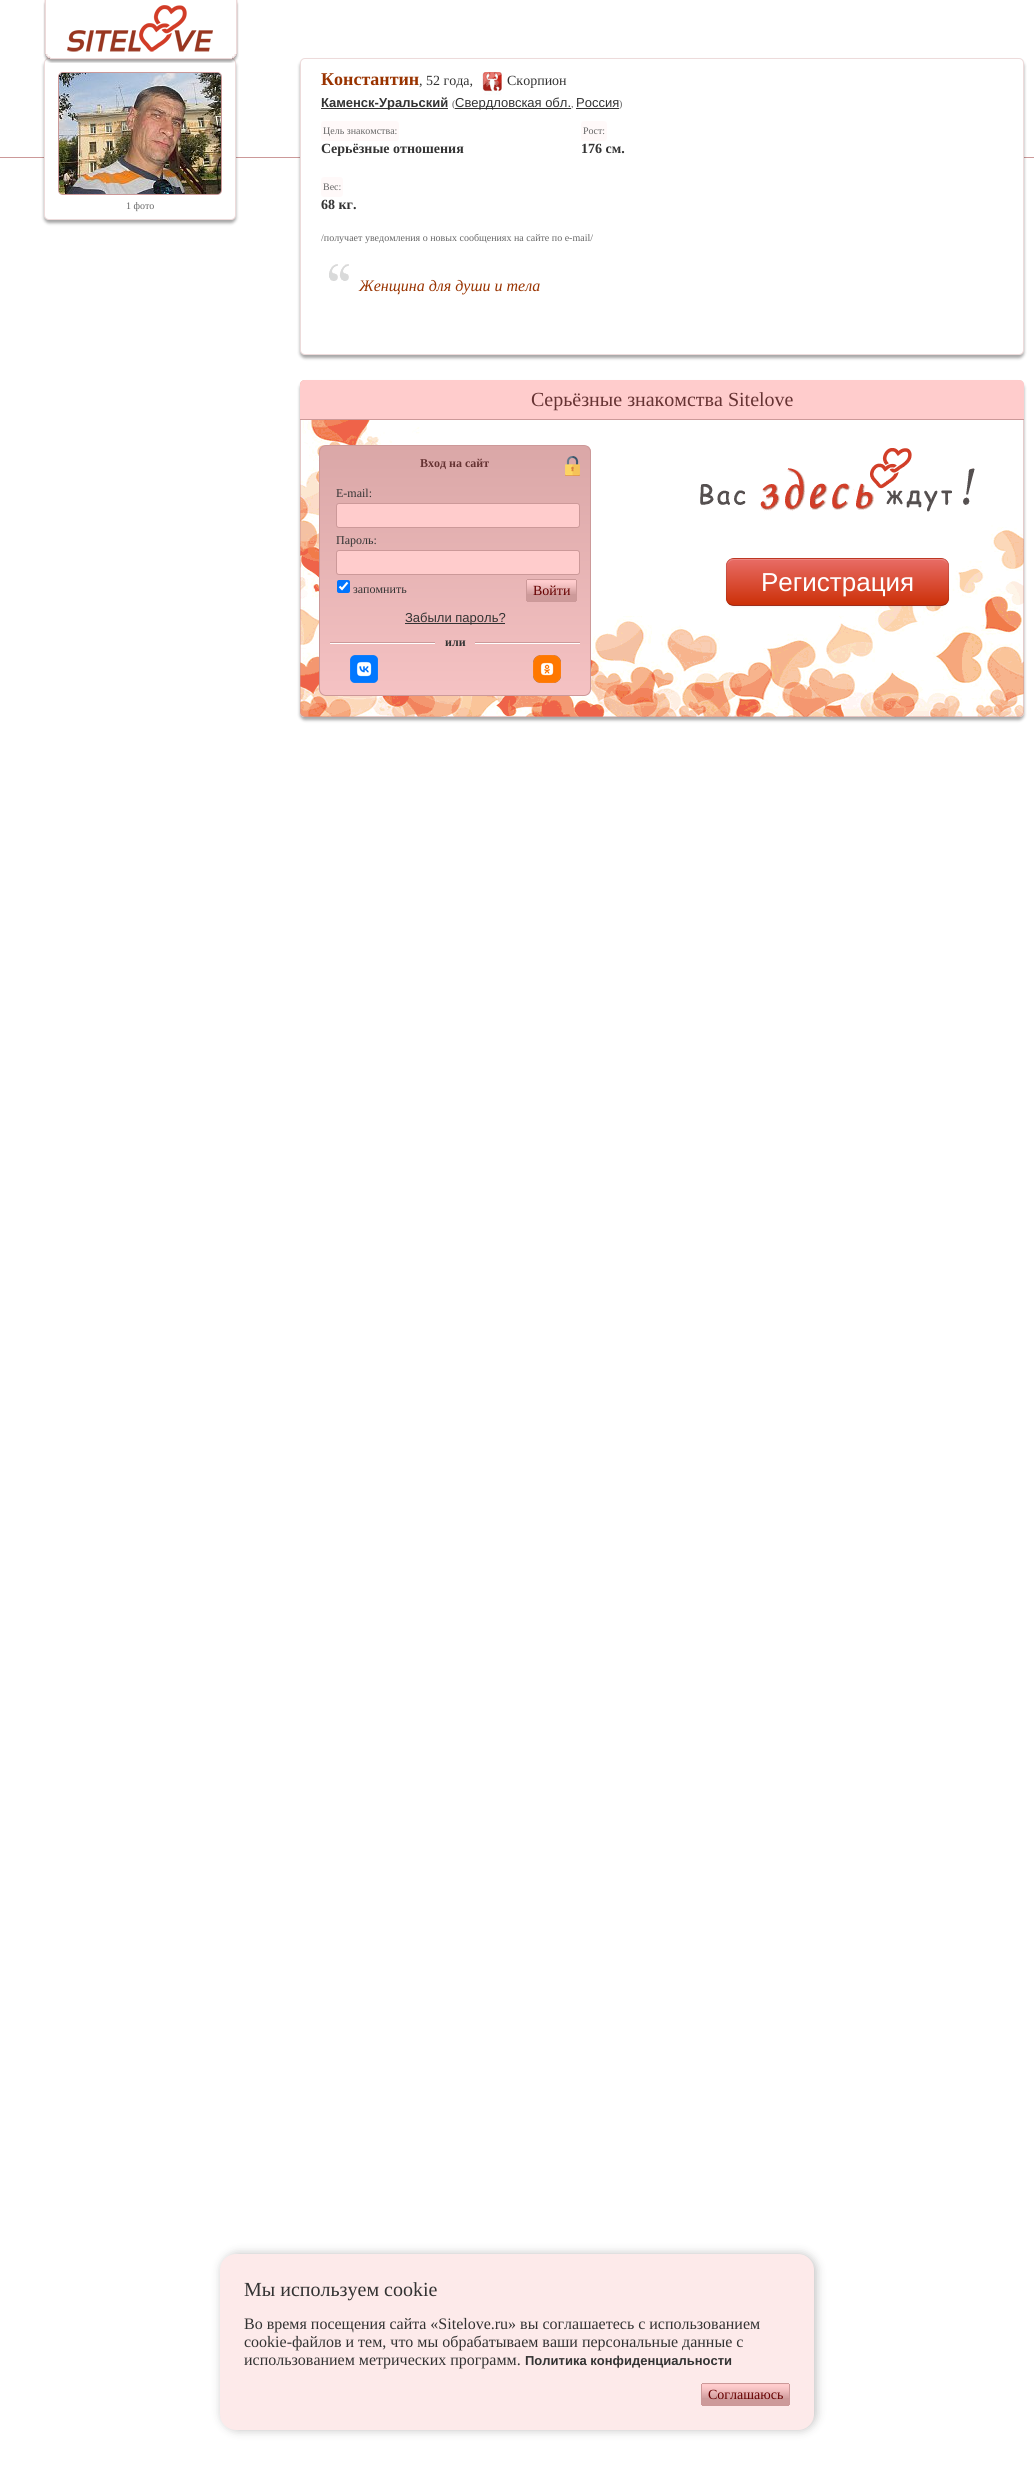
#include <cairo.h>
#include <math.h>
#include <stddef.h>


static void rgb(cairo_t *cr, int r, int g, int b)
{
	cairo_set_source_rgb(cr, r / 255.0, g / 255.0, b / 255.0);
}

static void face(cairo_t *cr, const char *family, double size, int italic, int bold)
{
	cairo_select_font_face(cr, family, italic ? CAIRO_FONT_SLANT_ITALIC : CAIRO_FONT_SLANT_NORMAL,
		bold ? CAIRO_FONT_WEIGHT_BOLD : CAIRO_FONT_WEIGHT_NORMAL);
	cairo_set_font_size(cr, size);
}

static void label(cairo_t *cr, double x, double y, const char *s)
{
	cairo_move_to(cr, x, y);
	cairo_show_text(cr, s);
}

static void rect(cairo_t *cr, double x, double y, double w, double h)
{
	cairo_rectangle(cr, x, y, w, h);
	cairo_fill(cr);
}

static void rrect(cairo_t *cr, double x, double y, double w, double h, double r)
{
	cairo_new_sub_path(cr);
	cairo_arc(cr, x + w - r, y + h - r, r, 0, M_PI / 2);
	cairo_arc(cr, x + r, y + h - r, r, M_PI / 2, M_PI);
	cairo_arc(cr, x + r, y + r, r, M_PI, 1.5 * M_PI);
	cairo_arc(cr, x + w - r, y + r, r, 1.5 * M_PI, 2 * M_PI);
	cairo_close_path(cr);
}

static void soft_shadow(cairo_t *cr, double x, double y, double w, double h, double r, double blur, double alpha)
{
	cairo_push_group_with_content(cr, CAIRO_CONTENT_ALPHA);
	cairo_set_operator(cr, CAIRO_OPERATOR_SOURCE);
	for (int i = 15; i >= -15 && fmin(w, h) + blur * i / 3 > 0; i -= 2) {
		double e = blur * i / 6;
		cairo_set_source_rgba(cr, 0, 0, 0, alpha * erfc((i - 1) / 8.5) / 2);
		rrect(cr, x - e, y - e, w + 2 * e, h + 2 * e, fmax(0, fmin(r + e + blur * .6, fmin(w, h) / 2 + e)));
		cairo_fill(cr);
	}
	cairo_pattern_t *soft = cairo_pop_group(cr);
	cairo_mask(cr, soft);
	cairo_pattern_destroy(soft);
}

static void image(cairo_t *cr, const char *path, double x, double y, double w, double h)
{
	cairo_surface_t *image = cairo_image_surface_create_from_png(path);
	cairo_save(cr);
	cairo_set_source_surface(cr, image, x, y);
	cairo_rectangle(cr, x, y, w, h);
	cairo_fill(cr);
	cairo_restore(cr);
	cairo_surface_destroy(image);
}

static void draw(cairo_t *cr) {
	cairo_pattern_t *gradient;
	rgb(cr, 255, 255, 255);
	cairo_paint(cr);
	rgb(cr, 204, 153, 153);
	rect(cr, 0, 157, 1034, 1);
	rgb(cr, 0, 0, 0);
	soft_shadow(cr, 44, 61, 192, 162, 5, 1.5, 0.35);
	rgb(cr, 255, 255, 255);
	rrect(cr, 44, 58, 192, 162, 5);
	cairo_fill(cr);
	rrect(cr, 44.5, 58.5, 191, 161, 4.5);
	cairo_set_source_rgba(cr, 0.8, 0.6, 0.6, 0.35);
	cairo_set_line_width(cr, 1);
	cairo_stroke(cr);
	image(cr, "image0.png", 43, 0, 196, 63);
	image(cr, "image1.png", 59, 73, 162, 121);
	rrect(cr, 58.5, 72.5, 163, 122, 4.5);
	rgb(cr, 204, 153, 153);
	cairo_stroke(cr);
	image(cr, "image2.png", 59, 73, 162, 121);
	face(cr, "Liberation Serif", 10, 0, 0);
	rgb(cr, 102, 102, 102);
	label(cr, 126, 209, "1 фото");
	rgb(cr, 0, 0, 0);
	soft_shadow(cr, 300, 61, 724, 297, 5, 1.5, 0.35);
	rgb(cr, 255, 255, 255);
	rrect(cr, 300, 58, 724, 297, 5);
	cairo_fill(cr);
	rrect(cr, 300.5, 58.5, 723, 296, 4.5);
	cairo_set_source_rgba(cr, 0.8, 0.6, 0.6, 0.35);
	cairo_stroke(cr);
	face(cr, "Liberation Serif", 18, 0, 1);
	rgb(cr, 153, 51, 0);
	label(cr, 321, 85, "Константин");
	face(cr, "Liberation Serif", 14, 0, 0);
	rgb(cr, 51, 51, 51);
	label(cr, 419, 85, ", 52 года,");
	image(cr, "image3.png", 482, 72, 22, 23);
	label(cr, 507, 85, "Скорпион");
	rect(cr, 321, 108, 127, 1);
	face(cr, "Liberation Sans", 13, 0, 1);
	label(cr, 321, 107, "Каменск-Уральский");
	face(cr, "Liberation Serif", 10, 0, 0);
	rgb(cr, 102, 102, 102);
	label(cr, 452, 107, "(");
	rgb(cr, 51, 51, 51);
	rect(cr, 455, 108, 116, 1);
	face(cr, "Liberation Sans", 13, 0, 0);
	label(cr, 455, 107, "Свердловская обл.");
	face(cr, "Liberation Serif", 10, 0, 0);
	rgb(cr, 102, 102, 102);
	label(cr, 571, 107, ",");
	rgb(cr, 51, 51, 51);
	rect(cr, 576, 108, 43, 1);
	face(cr, "Liberation Sans", 13, 0, 0);
	label(cr, 576, 107, "Россия");
	face(cr, "Liberation Serif", 10, 0, 0);
	rgb(cr, 102, 102, 102);
	label(cr, 619, 107, ")");
	rgb(cr, 255, 249, 249);
	rrect(cr, 321, 121, 78, 20, 3);
	cairo_fill(cr);
	rgb(cr, 102, 102, 102);
	label(cr, 323, 134, "Цель знакомства:");
	face(cr, "Liberation Serif", 14, 0, 1);
	rgb(cr, 51, 51, 51);
	label(cr, 321, 153, "Серьёзные отношения");
	rgb(cr, 255, 249, 249);
	rrect(cr, 581, 121, 26, 20, 3);
	cairo_fill(cr);
	face(cr, "Liberation Serif", 10, 0, 0);
	rgb(cr, 102, 102, 102);
	label(cr, 583, 134, "Рост:");
	face(cr, "Liberation Serif", 14, 0, 1);
	rgb(cr, 51, 51, 51);
	label(cr, 581, 153, "176 см.");
	rgb(cr, 255, 249, 249);
	rrect(cr, 321, 177, 22, 20, 3);
	cairo_fill(cr);
	face(cr, "Liberation Serif", 10, 0, 0);
	rgb(cr, 102, 102, 102);
	label(cr, 323, 190, "Вес:");
	face(cr, "Liberation Serif", 14, 0, 1);
	rgb(cr, 51, 51, 51);
	label(cr, 321, 209, "68 кг.");
	face(cr, "Liberation Serif", 10, 0, 0);
	rgb(cr, 102, 102, 102);
	label(cr, 321, 241, "/получает уведомления о новых сообщениях на сайте по e-mail/");
	image(cr, "image4.png", 329, 264, 20, 17);
	face(cr, "Liberation Serif", 16, 1, 0);
	rgb(cr, 153, 51, 0);
	label(cr, 359, 291, "Женщина для души и тела");
	rgb(cr, 0, 0, 0);
	soft_shadow(cr, 222, 2254, 594, 176, 16, 5, 0.25);
	rgb(cr, 253, 234, 234);
	rrect(cr, 220, 2254, 594, 176, 16);
	cairo_fill(cr);
	face(cr, "Liberation Serif", 20, 0, 0);
	rgb(cr, 51, 51, 51);
	label(cr, 244, 2296, "Мы используем сookie");
	face(cr, "Liberation Serif", 16, 0, 0);
	label(cr, 244, 2329, "Во время посещения сайта «Sitelove.ru» вы соглашаетесь с использованием");
	label(cr, 244, 2347, "cookie-файлов и тем, что мы обрабатываем ваши персональные данные с");
	label(cr, 244, 2365, "использованием метрических программ.");
	face(cr, "Liberation Sans", 13, 0, 1);
	label(cr, 525, 2365, "Политика конфиденциальности");
	image(cr, "image5.png", 702, 2383, 87, 15);
	rgb(cr, 205, 154, 154);
	rect(cr, 702, 2398, 87, 7);
	face(cr, "Liberation Serif", 14, 0, 0);
	rgb(cr, 102, 0, 0);
	label(cr, 708, 2399, "Соглашаюсь");
	rgb(cr, 204, 153, 153);
	rect(cr, 789, 2384, 1, 21);
	rect(cr, 701, 2384, 1, 21);
	rect(cr, 702, 2405, 87, 1);
	image(cr, "image6.png", 300, 380, 724, 337);
	cairo_save(cr);
	cairo_set_fill_rule(cr, CAIRO_FILL_RULE_EVEN_ODD);
	cairo_new_path(cr);
	cairo_move_to(cr, 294, 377);
	cairo_line_to(cr, 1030, 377);
	cairo_line_to(cr, 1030, 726);
	cairo_line_to(cr, 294, 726);
	cairo_close_path(cr);
	cairo_move_to(cr, 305, 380);
	cairo_line_to(cr, 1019, 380);
	cairo_curve_to(cr, 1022, 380, 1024, 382, 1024, 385);
	cairo_line_to(cr, 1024, 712);
	cairo_curve_to(cr, 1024, 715, 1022, 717, 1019, 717);
	cairo_line_to(cr, 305, 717);
	cairo_curve_to(cr, 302, 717, 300, 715, 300, 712);
	cairo_line_to(cr, 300, 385);
	cairo_curve_to(cr, 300, 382, 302, 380, 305, 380);
	cairo_close_path(cr);
	cairo_clip(cr);
	rgb(cr, 0, 0, 0);
	soft_shadow(cr, 300, 383, 724, 337, 5, 1.5, 0.35);
	cairo_restore(cr);
	rrect(cr, 300.5, 380.5, 723, 336, 4.5);
	cairo_set_source_rgba(cr, 0.8, 0.6, 0.6, 0.5);
	cairo_stroke(cr);
	rgb(cr, 255, 204, 204);
	cairo_new_path(cr);
	cairo_move_to(cr, 305, 380);
	cairo_line_to(cr, 1019, 380);
	cairo_curve_to(cr, 1022, 380, 1024, 382, 1024, 385);
	cairo_line_to(cr, 1024, 420);
	cairo_line_to(cr, 300, 420);
	cairo_line_to(cr, 300, 385);
	cairo_curve_to(cr, 300, 382, 302, 380, 305, 380);
	cairo_close_path(cr);
	cairo_fill(cr);
	rgb(cr, 204, 153, 153);
	rect(cr, 300, 419, 724, 1);
	face(cr, "Liberation Serif", 20, 0, 0);
	rgb(cr, 102, 51, 51);
	label(cr, 531, 406, "Серьёзные знакомства Sitelove");
	cairo_save(cr);
	rrect(cr, 319, 445, 272, 251, 7);
	cairo_clip(cr);
	gradient = cairo_pattern_create_linear(455, 446, 455, 695);
	cairo_pattern_add_color_stop_rgba(gradient, 0, 0.855, 0.655, 0.655, 1);
	cairo_pattern_add_color_stop_rgba(gradient, 1, 0.961, 0.761, 0.765, 1);
	cairo_set_source(cr, gradient);
	cairo_pattern_destroy(gradient);
	rect(cr, 319, 446, 272, 249);
	cairo_restore(cr);
	rrect(cr, 319.5, 445.5, 271, 250, 6.5);
	rgb(cr, 204, 153, 153);
	cairo_stroke(cr);
	face(cr, "Liberation Serif", 12, 0, 1);
	rgb(cr, 102, 51, 51);
	label(cr, 420, 467, "Вход на сайт");
	image(cr, "image7.png", 565, 456, 15, 20);
	face(cr, "Liberation Serif", 12, 0, 0);
	rgb(cr, 51, 51, 51);
	label(cr, 336, 497, "E-mail:");
	rgb(cr, 255, 204, 204);
	rrect(cr, 336.5, 503.5, 243, 24, 2.5);
	cairo_fill_preserve(cr);
	rgb(cr, 204, 153, 153);
	cairo_stroke(cr);
	rgb(cr, 51, 51, 51);
	label(cr, 336, 544, "Пароль:");
	rgb(cr, 255, 204, 204);
	rrect(cr, 336.5, 550.5, 243, 24, 2.5);
	cairo_fill_preserve(cr);
	rgb(cr, 204, 153, 153);
	cairo_stroke(cr);
	rgb(cr, 0, 117, 255);
	rrect(cr, 337, 580, 13, 13, 2);
	cairo_fill(cr);
	cairo_new_path(cr);
	cairo_move_to(cr, 339.5, 586.5);
	cairo_line_to(cr, 342, 589);
	cairo_line_to(cr, 347.5, 582.5);
	rgb(cr, 255, 255, 255);
	cairo_set_line_width(cr, 2.1);
	cairo_stroke(cr);
	rgb(cr, 51, 51, 51);
	label(cr, 353, 593, "запомнить");
	image(cr, "image8.png", 527, 579, 49, 15);
	rgb(cr, 205, 154, 154);
	rect(cr, 527, 594, 49, 7);
	face(cr, "Liberation Serif", 14, 0, 0);
	rgb(cr, 102, 0, 0);
	label(cr, 533, 595, "Войти");
	rgb(cr, 204, 153, 153);
	rect(cr, 576, 580, 1, 21);
	rect(cr, 526, 580, 1, 21);
	rect(cr, 527, 601, 49, 1);
	rgb(cr, 51, 51, 51);
	rect(cr, 405, 623, 100, 1);
	face(cr, "Liberation Sans", 13, 0, 0);
	label(cr, 405, 622, "Забыли пароль?");
	rgb(cr, 204, 153, 153);
	rect(cr, 330, 642, 105, 1);
	rgb(cr, 255, 255, 255);
	rect(cr, 330, 643, 105, 1);
	face(cr, "Liberation Serif", 12, 0, 1);
	rgb(cr, 51, 51, 51);
	label(cr, 445, 646, "или");
	rgb(cr, 204, 153, 153);
	rect(cr, 475, 642, 105, 1);
	rgb(cr, 255, 255, 255);
	rect(cr, 475, 643, 105, 1);
	image(cr, "image9.png", 350, 655, 28, 28);
	image(cr, "image10.png", 533, 655, 28, 28);
	image(cr, "image11.png", 700, 448, 275, 64);
	rgb(cr, 0, 0, 0);
	soft_shadow(cr, 726, 559, 223, 48, 8, 1, 0.05);
	rgb(cr, 209, 61, 39);
	rrect(cr, 726, 558, 223, 48, 8);
	cairo_fill(cr);
	cairo_save(cr);
	rrect(cr, 726, 558, 223, 48, 8);
	cairo_clip(cr);
	gradient = cairo_pattern_create_linear(838, 559, 838, 605);
	cairo_pattern_add_color_stop_rgba(gradient, 0, 0.91, 0.424, 0.4, 1);
	cairo_pattern_add_color_stop_rgba(gradient, 1, 0.8, 0.188, 0.031, 1);
	cairo_set_source(cr, gradient);
	cairo_pattern_destroy(gradient);
	rect(cr, 726, 559, 223, 46);
	cairo_restore(cr);
	cairo_set_source_rgba(cr, 1, 1, 1, 0.2);
	cairo_new_path(cr);
	cairo_move_to(cr, 734, 560);
	cairo_line_to(cr, 941, 560);
	cairo_curve_to(cr, 945, 560, 948, 563, 948, 567);
	cairo_curve_to(cr, 948, 563, 946, 560, 942, 559);
	cairo_line_to(cr, 734, 559);
	cairo_curve_to(cr, 729, 559, 727, 563, 727, 567);
	cairo_curve_to(cr, 727, 563, 730, 560, 734, 560);
	cairo_close_path(cr);
	cairo_fill(cr);
	cairo_new_path(cr);
	cairo_move_to(cr, 946.5, 603.5);
	cairo_curve_to(cr, 945, 604.5, 943, 605.5, 941, 605.5);
	cairo_line_to(cr, 734, 605.5);
	cairo_curve_to(cr, 732, 605.5, 730, 604.5, 728.5, 603.5);
	cairo_set_source_rgba(cr, 0, 0, 0, 0.25);
	cairo_set_line_width(cr, 1);
	cairo_stroke(cr);
	cairo_new_path(cr);
	cairo_move_to(cr, 728.5, 603.5);
	cairo_curve_to(cr, 727.5, 602, 726.5, 600, 726.5, 598);
	cairo_line_to(cr, 726.5, 566);
	cairo_curve_to(cr, 726.5, 564, 727.5, 562, 728.5, 560.5);
	cairo_curve_to(cr, 730, 559.5, 732, 558.5, 734, 558.5);
	cairo_line_to(cr, 941, 558.5);
	cairo_curve_to(cr, 943, 558.5, 945, 559.5, 946.5, 560.5);
	cairo_curve_to(cr, 947.5, 562, 948.5, 564, 948.5, 566);
	cairo_line_to(cr, 948.5, 598);
	cairo_curve_to(cr, 948.5, 600, 947.5, 602, 946.5, 603.5);
	cairo_set_source_rgba(cr, 0, 0, 0, 0.1);
	cairo_stroke(cr);
	face(cr, "Liberation Sans", 26, 0, 0);
	rgb(cr, 255, 255, 255);
	label(cr, 761, 591, "Регистрация");
}

int main(void) {
	cairo_surface_t *surface = cairo_image_surface_create(CAIRO_FORMAT_RGB24, 1034, 2470);
	cairo_t *cr = cairo_create(surface);
	cairo_font_options_t *options = cairo_font_options_create();
	cairo_font_options_set_hint_metrics(options, CAIRO_HINT_METRICS_OFF);
	cairo_font_options_set_hint_style(options, CAIRO_HINT_STYLE_NONE);
	cairo_set_font_options(cr, options);
	cairo_set_miter_limit(cr, 4);
	draw(cr);
	cairo_surface_write_to_png(surface, "render.png");
	cairo_font_options_destroy(options);
	cairo_destroy(cr);
	cairo_surface_destroy(surface);
	return 0;
}
